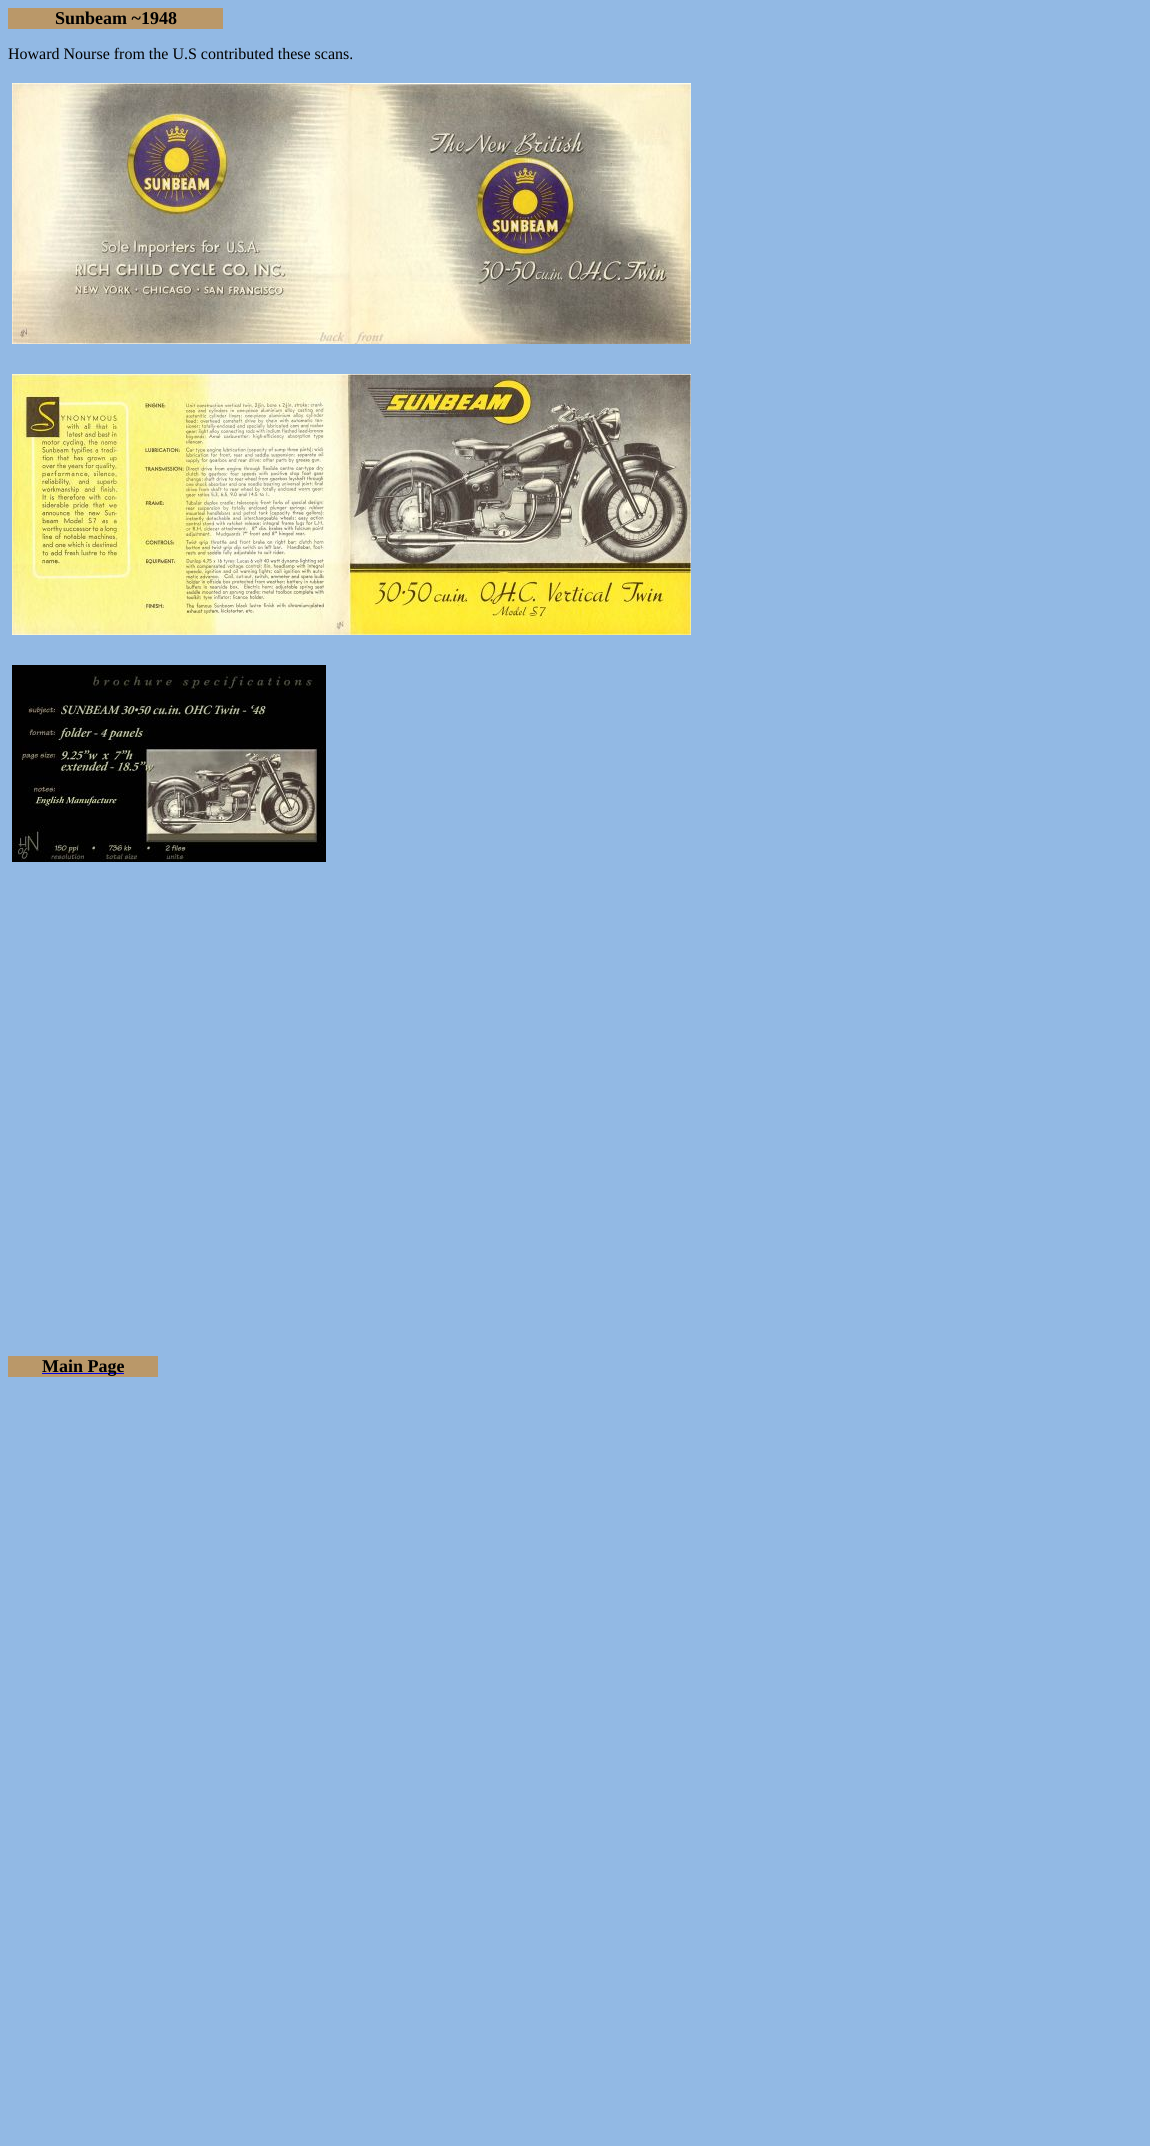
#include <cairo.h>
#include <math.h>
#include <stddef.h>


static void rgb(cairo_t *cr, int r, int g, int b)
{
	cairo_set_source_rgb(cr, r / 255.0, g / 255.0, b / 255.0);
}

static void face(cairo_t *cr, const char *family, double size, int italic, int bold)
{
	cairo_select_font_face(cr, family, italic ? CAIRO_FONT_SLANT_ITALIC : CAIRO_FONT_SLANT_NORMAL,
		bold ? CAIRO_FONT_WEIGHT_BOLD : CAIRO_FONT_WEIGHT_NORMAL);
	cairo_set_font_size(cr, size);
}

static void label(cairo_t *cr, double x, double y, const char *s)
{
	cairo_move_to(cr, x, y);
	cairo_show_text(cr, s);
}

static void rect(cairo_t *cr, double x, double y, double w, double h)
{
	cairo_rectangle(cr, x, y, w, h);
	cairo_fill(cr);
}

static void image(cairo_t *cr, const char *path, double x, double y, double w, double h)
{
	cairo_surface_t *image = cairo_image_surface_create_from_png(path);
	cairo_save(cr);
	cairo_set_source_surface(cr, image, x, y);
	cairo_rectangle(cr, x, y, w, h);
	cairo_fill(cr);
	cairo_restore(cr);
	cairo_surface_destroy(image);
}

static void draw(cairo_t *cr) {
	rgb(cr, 146, 185, 228);
	cairo_paint(cr);
	rgb(cr, 186, 152, 105);
	rect(cr, 8, 8, 215, 21);
	face(cr, "Liberation Serif", 18, 0, 1);
	rgb(cr, 0, 0, 0);
	label(cr, 55, 24, "Sunbeam ~1948");
	face(cr, "Liberation Serif", 16, 0, 0);
	label(cr, 8, 59, "Howard Nourse from the U.S contributed these scans.");
	image(cr, "image0.png", 12, 83, 679, 261);
	image(cr, "image1.png", 12, 374, 679, 261);
	image(cr, "image2.png", 12, 665, 314, 197);
	rgb(cr, 186, 152, 105);
	rect(cr, 8, 1356, 150, 21);
	rgb(cr, 0, 0, 238);
	rect(cr, 42, 1373, 82, 1);
	face(cr, "Liberation Serif", 18, 0, 1);
	rgb(cr, 0, 0, 0);
	label(cr, 42, 1372, "Main Page");
}

int main(void) {
	cairo_surface_t *surface = cairo_image_surface_create(CAIRO_FORMAT_RGB24, 1150, 2146);
	cairo_t *cr = cairo_create(surface);
	cairo_font_options_t *options = cairo_font_options_create();
	cairo_font_options_set_hint_metrics(options, CAIRO_HINT_METRICS_OFF);
	cairo_font_options_set_hint_style(options, CAIRO_HINT_STYLE_NONE);
	cairo_set_font_options(cr, options);
	cairo_set_miter_limit(cr, 4);
	draw(cr);
	cairo_surface_write_to_png(surface, "render.png");
	cairo_font_options_destroy(options);
	cairo_destroy(cr);
	cairo_surface_destroy(surface);
	return 0;
}
